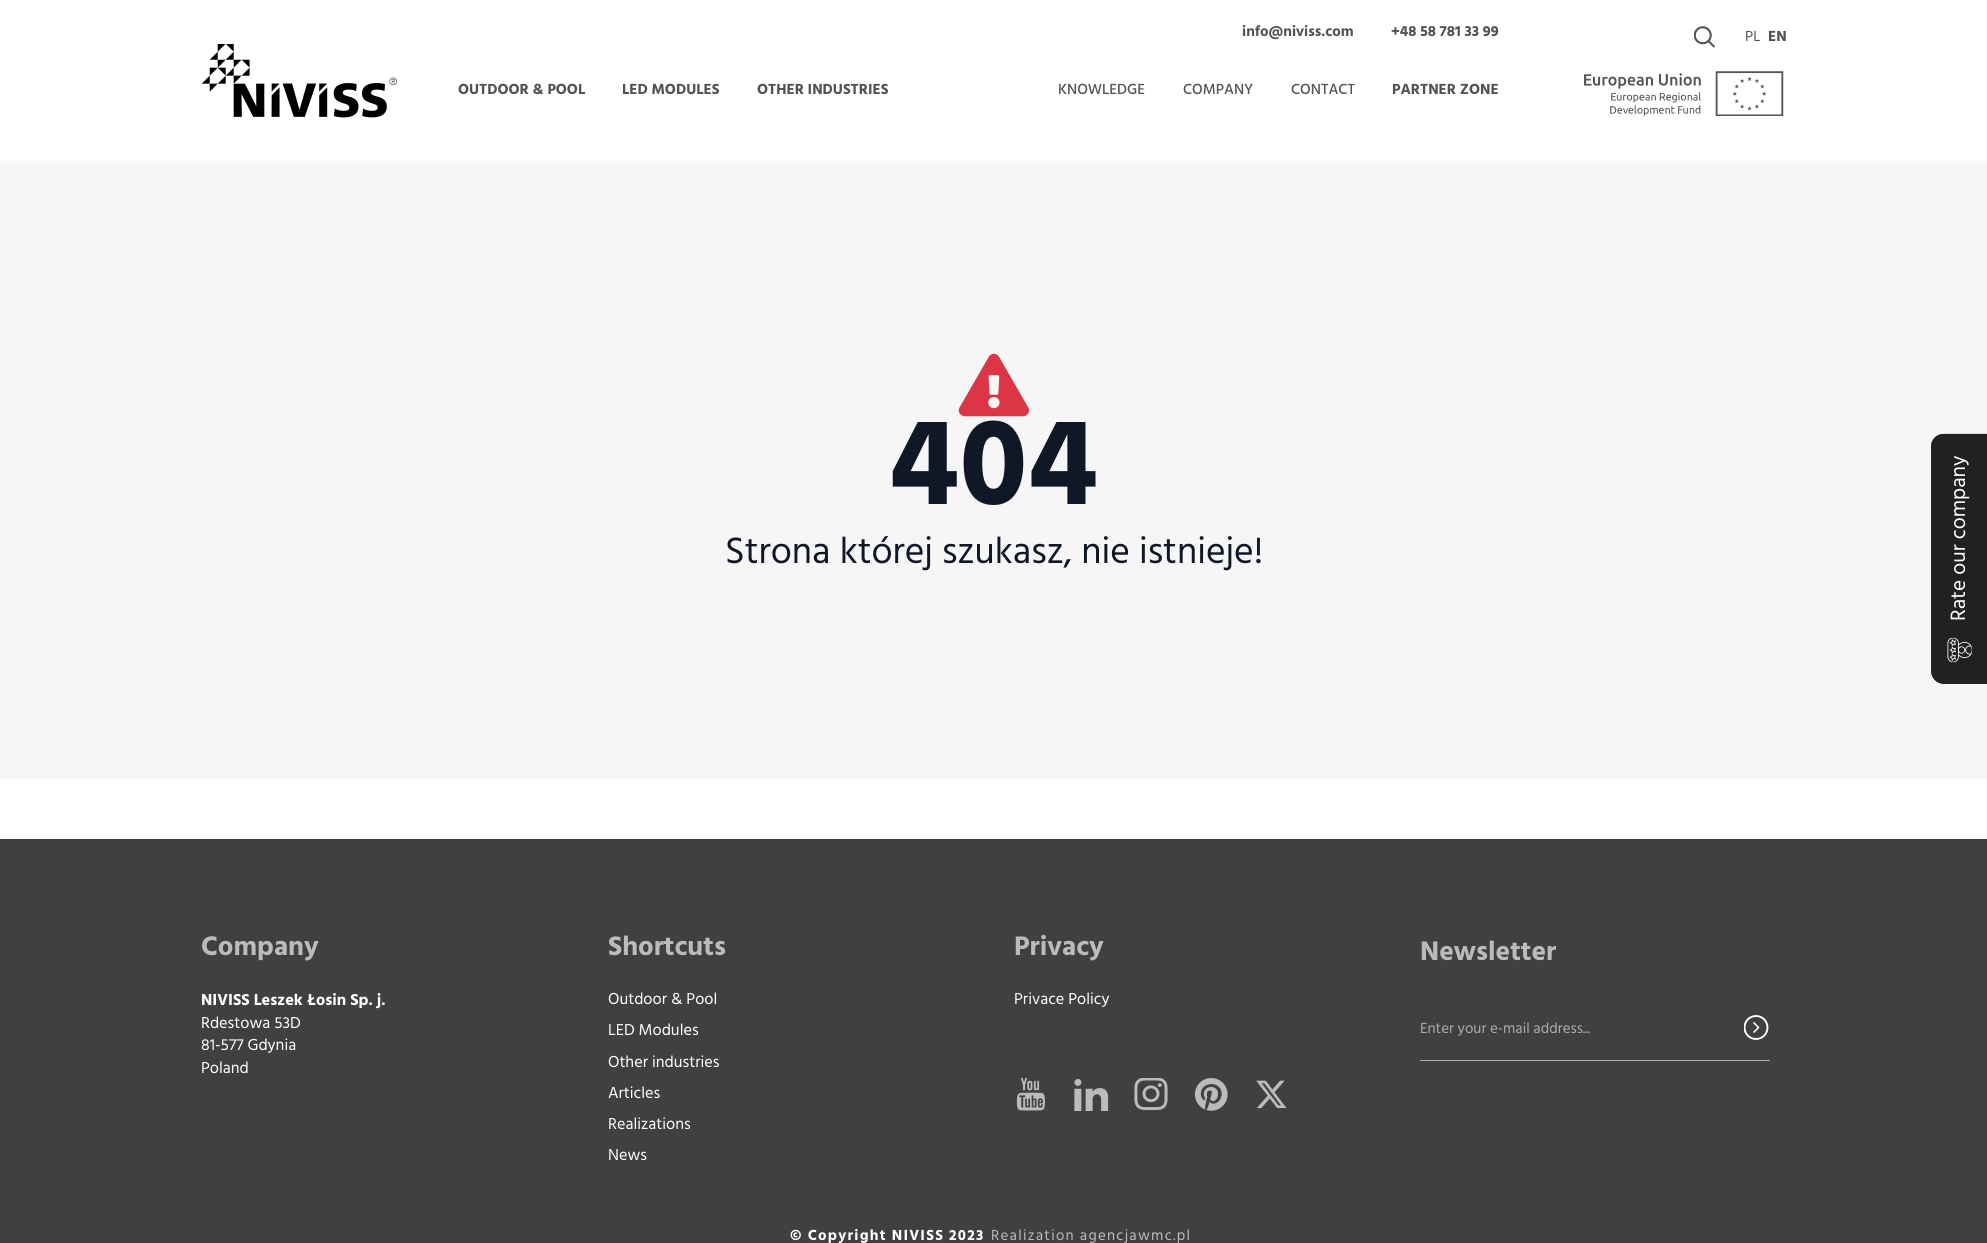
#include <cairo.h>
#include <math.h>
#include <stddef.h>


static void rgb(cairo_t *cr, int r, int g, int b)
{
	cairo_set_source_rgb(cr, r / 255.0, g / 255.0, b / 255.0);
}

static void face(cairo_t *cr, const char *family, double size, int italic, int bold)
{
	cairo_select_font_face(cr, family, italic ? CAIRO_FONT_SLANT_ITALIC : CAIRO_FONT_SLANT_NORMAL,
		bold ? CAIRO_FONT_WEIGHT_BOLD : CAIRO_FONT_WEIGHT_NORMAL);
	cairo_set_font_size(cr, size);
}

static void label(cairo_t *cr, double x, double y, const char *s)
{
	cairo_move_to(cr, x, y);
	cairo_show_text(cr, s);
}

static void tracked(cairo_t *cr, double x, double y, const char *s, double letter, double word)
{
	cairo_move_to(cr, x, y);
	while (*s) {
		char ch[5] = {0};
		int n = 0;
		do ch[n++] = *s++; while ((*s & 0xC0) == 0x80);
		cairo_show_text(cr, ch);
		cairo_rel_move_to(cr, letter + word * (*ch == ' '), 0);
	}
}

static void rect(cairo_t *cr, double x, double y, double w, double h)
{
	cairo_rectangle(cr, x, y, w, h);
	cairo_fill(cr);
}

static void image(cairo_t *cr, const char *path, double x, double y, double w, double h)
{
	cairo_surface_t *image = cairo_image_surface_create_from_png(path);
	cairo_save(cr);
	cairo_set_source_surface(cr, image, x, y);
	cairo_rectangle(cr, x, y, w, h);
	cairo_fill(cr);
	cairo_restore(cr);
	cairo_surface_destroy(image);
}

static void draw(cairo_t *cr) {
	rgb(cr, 255, 255, 255);
	cairo_paint(cr);
	rgb(cr, 245, 245, 245);
	rect(cr, 0, 161, 1987, 1);
	image(cr, "image0.png", 201, 44, 197, 74);
	face(cr, "Hind", 15, 0, 1);
	rgb(cr, 83, 83, 83);
	label(cr, 1242, 36, "info@niviss.com");
	label(cr, 1391, 36, "+48 58 781 33 99");
	label(cr, 458, 94, "OUTDOOR & POOL");
	label(cr, 622, 94, "LED MODULES");
	label(cr, 757, 94, "OTHER INDUSTRIES");
	face(cr, "Hind Medium", 15, 0, 0);
	label(cr, 1058, 94, "KNOWLEDGE");
	label(cr, 1183, 94, "COMPANY");
	label(cr, 1291, 94, "CONTACT");
	face(cr, "Hind", 15, 0, 1);
	label(cr, 1392, 94, "PARTNER ZONE");
	image(cr, "image1.png", 1694, 26, 21, 22);
	face(cr, "Hind", 15, 0, 0);
	label(cr, 1745, 41, "PL");
	face(cr, "Hind", 15, 0, 1);
	label(cr, 1768, 41, "EN");
	image(cr, "image2.png", 1584, 71, 200, 45);
	rgb(cr, 246, 246, 246);
	rect(cr, 0, 163, 1987, 616);
	image(cr, "image3.png", 958, 353, 72, 64);
	face(cr, "Hind", 125, 0, 1);
	rgb(cr, 16, 24, 40);
	label(cr, 889, 504, "404");
	face(cr, "Hind", 37.5, 0, 0);
	label(cr, 725, 563, "Strona której szukasz, nie istnieje!");
	rgb(cr, 33, 33, 33);
	cairo_new_path(cr);
	cairo_move_to(cr, 1931, 671);
	cairo_line_to(cr, 1931, 446);
	cairo_curve_to(cr, 1931, 439, 1937, 434, 1944, 434);
	cairo_line_to(cr, 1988, 434);
	cairo_line_to(cr, 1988, 684);
	cairo_line_to(cr, 1944, 684);
	cairo_curve_to(cr, 1937, 684, 1931, 678, 1931, 671);
	cairo_close_path(cr);
	cairo_fill(cr);
	cairo_new_path(cr);
	cairo_move_to(cr, 1932, 671);
	cairo_line_to(cr, 1932, 446);
	cairo_curve_to(cr, 1932, 439.5, 1937, 434.5, 1944, 434.5);
	cairo_line_to(cr, 1987, 434.5);
	cairo_line_to(cr, 1987, 683);
	cairo_line_to(cr, 1944, 683);
	cairo_curve_to(cr, 1937, 683, 1932, 678, 1932, 671);
	cairo_close_path(cr);
	cairo_set_line_width(cr, 1.2);
	cairo_stroke(cr);
	face(cr, "Hind", 21.25, 0, 0);
	rgb(cr, 255, 255, 255);
	cairo_save(cr);
	cairo_translate(cr, 1965, 621);
	cairo_rotate(cr, -90 * M_PI / 180);
	label(cr, 0, 0, "Rate our company");
	cairo_restore(cr);
	image(cr, "image4.png", 1947, 637, 25, 26);
	rgb(cr, 64, 64, 64);
	rect(cr, 0, 839, 1987, 404);
	face(cr, "Hind", 27.5, 0, 1);
	rgb(cr, 187, 187, 187);
	label(cr, 201, 955, "Company");
	face(cr, "Hind", 16.25, 0, 1);
	rgb(cr, 255, 255, 255);
	label(cr, 201, 1005, "NIVISS Leszek Łosin Sp. j.");
	face(cr, "Hind", 16.25, 0, 0);
	label(cr, 201, 1028, "Rdestowa 53D");
	label(cr, 201, 1050, "81-577 Gdynia");
	label(cr, 201, 1073, "Poland");
	face(cr, "Hind", 27.5, 0, 1);
	rgb(cr, 187, 187, 187);
	label(cr, 608, 955, "Shortcuts");
	face(cr, "Hind", 16.25, 0, 0);
	rgb(cr, 255, 255, 255);
	label(cr, 608, 1004, "Outdoor & Pool");
	label(cr, 608, 1035, "LED Modules");
	label(cr, 608, 1067, "Other industries");
	label(cr, 608, 1098, "Articles");
	label(cr, 608, 1129, "Realizations");
	label(cr, 608, 1160, "News");
	face(cr, "Hind", 27.5, 0, 1);
	rgb(cr, 187, 187, 187);
	label(cr, 1014, 955, "Privacy");
	face(cr, "Hind", 16.25, 0, 0);
	rgb(cr, 255, 255, 255);
	label(cr, 1014, 1004, "Privace Policy");
	image(cr, "image5.png", 1016, 1078, 29, 33);
	image(cr, "image6.png", 1074, 1079, 35, 32);
	image(cr, "image7.png", 1134, 1078, 34, 33);
	image(cr, "image8.png", 1194, 1078, 34, 33);
	image(cr, "image9.png", 1256, 1080, 31, 29);
	face(cr, "Hind", 27.5, 0, 1);
	rgb(cr, 187, 187, 187);
	label(cr, 1420, 960, "Newsletter");
	rgb(cr, 172, 172, 172);
	rect(cr, 1420, 1060, 350, 1);
	face(cr, "Hind", 15, 0, 0);
	label(cr, 1420, 1033, "Enter your e-mail address...");
	image(cr, "image10.png", 1744, 1015, 25, 25);
	face(cr, "Hind", 15, 0, 1);
	rgb(cr, 255, 255, 255);
	tracked(cr, 790, 1240, "© Copyright NIVISS 2023", 1.25, 0);
	face(cr, "Hind", 15, 0, 0);
	rgb(cr, 187, 187, 187);
	tracked(cr, 991, 1240, "Realization agencjawmc.pl", 1.25, 0);
}

int main(void) {
	cairo_surface_t *surface = cairo_image_surface_create(CAIRO_FORMAT_RGB24, 1987, 1243);
	cairo_t *cr = cairo_create(surface);
	cairo_font_options_t *options = cairo_font_options_create();
	cairo_font_options_set_hint_metrics(options, CAIRO_HINT_METRICS_OFF);
	cairo_font_options_set_hint_style(options, CAIRO_HINT_STYLE_NONE);
	cairo_set_font_options(cr, options);
	cairo_set_miter_limit(cr, 4);
	draw(cr);
	cairo_surface_write_to_png(surface, "render.png");
	cairo_font_options_destroy(options);
	cairo_destroy(cr);
	cairo_surface_destroy(surface);
	return 0;
}
